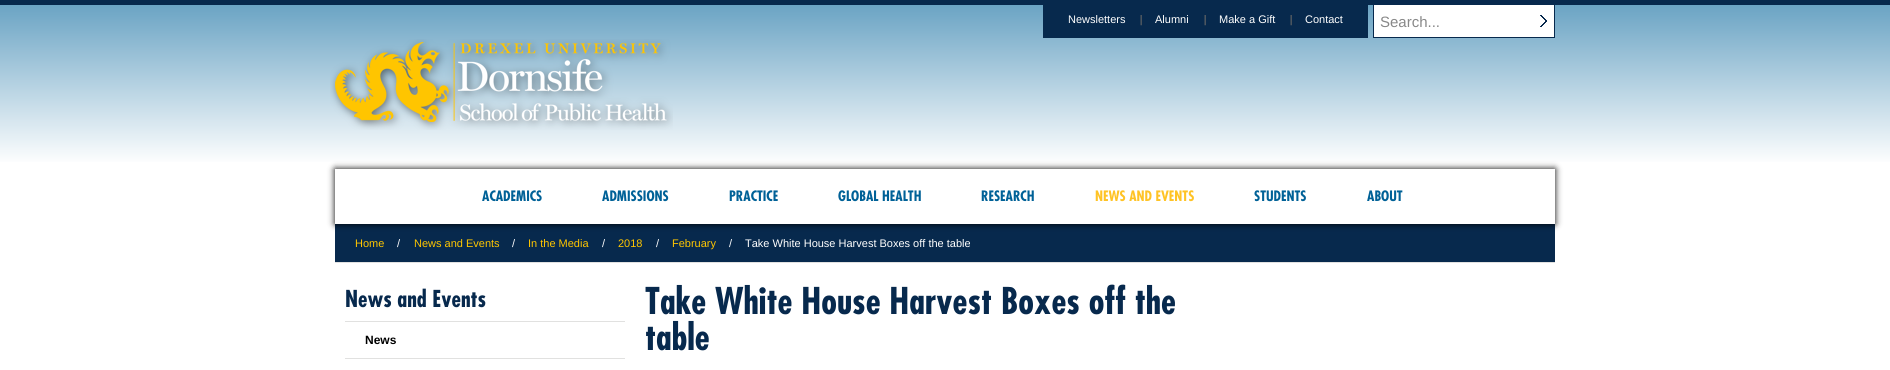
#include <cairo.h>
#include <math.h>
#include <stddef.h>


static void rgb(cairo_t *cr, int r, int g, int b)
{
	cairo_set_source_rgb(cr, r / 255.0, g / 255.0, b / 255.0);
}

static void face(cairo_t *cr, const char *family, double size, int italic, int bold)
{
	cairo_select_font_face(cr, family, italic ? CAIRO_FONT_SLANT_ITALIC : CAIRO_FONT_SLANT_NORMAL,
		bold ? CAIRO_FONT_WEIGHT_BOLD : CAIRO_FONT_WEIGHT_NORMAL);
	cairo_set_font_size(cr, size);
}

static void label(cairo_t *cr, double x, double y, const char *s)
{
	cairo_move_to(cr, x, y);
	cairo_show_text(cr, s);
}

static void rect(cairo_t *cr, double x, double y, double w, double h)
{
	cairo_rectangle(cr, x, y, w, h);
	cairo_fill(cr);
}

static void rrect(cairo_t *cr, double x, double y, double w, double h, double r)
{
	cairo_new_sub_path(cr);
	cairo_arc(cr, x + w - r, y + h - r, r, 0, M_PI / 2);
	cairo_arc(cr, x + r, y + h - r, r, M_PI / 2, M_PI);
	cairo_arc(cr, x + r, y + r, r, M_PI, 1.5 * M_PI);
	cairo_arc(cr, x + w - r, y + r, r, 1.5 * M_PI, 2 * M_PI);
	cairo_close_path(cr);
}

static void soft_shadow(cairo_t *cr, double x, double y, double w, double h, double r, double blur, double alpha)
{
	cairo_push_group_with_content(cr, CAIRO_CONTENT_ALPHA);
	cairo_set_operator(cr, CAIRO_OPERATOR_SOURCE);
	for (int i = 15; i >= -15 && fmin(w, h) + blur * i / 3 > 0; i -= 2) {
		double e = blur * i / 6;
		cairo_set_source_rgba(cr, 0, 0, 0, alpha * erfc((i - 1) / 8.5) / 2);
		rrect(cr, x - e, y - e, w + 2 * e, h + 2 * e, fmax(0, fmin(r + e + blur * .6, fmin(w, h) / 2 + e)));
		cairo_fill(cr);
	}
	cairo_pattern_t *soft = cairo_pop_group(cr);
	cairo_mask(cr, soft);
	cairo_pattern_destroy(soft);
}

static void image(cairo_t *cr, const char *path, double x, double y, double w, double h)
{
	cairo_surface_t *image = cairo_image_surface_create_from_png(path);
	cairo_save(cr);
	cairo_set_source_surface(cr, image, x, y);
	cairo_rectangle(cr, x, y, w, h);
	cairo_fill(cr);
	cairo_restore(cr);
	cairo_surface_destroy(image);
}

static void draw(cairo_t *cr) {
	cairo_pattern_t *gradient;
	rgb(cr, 255, 255, 255);
	cairo_paint(cr);
	gradient = cairo_pattern_create_linear(945, 0, 945, 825);
	cairo_pattern_add_color_stop_rgba(gradient, 0, 0.4, 0.631, 0.761, 1);
	cairo_pattern_add_color_stop_rgba(gradient, 0.2, 1, 1, 1, 1);
	cairo_set_source(cr, gradient);
	cairo_pattern_destroy(gradient);
	rect(cr, 0, 5, 1890, 157);
	rgb(cr, 7, 41, 77);
	rect(cr, 0, 0, 1890, 5);
	rect(cr, 1043, 5, 325, 33);
	face(cr, "Liberation Sans", 11, 0, 0);
	rgb(cr, 255, 255, 255);
	label(cr, 1068, 23, "Newsletters");
	image(cr, "image0.png", 1140, 15, 2, 11);
	label(cr, 1155, 23, "Alumni");
	image(cr, "image1.png", 1204, 15, 2, 11);
	label(cr, 1219, 23, "Make a Gift");
	image(cr, "image0.png", 1290, 15, 2, 11);
	label(cr, 1305, 23, "Contact");
	rgb(cr, 7, 41, 77);
	rect(cr, 1373, 5, 182, 33);
	rgb(cr, 255, 255, 255);
	rect(cr, 1374, 5, 180, 32);
	image(cr, "image2.png", 1540, 15, 7, 12);
	face(cr, "Liberation Sans", 15, 0, 0);
	rgb(cr, 136, 136, 136);
	label(cr, 1380, 27, "Search...");
	image(cr, "image3.png", 330, 39, 343, 91);
	rgb(cr, 7, 41, 77);
	rect(cr, 335, 224, 1220, 38);
	cairo_save(cr);
	cairo_set_fill_rule(cr, CAIRO_FILL_RULE_EVEN_ODD);
	cairo_new_path(cr);
	cairo_move_to(cr, 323, 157);
	cairo_line_to(cr, 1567, 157);
	cairo_line_to(cr, 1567, 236);
	cairo_line_to(cr, 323, 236);
	cairo_close_path(cr);
	cairo_move_to(cr, 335, 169);
	cairo_line_to(cr, 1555, 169);
	cairo_line_to(cr, 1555, 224);
	cairo_line_to(cr, 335, 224);
	cairo_close_path(cr);
	cairo_clip(cr);
	rgb(cr, 0, 0, 0);
	soft_shadow(cr, 335, 169, 1220, 55, 0, 3.5, 1);
	cairo_restore(cr);
	face(cr, "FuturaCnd", 14, 0, 1);
	rgb(cr, 0, 97, 151);
	label(cr, 482, 201, "ACADEMICS");
	label(cr, 602, 201, "ADMISSIONS");
	label(cr, 729, 201, "PRACTICE");
	label(cr, 838, 201, "GLOBAL HEALTH");
	label(cr, 981, 201, "RESEARCH");
	rgb(cr, 255, 195, 37);
	label(cr, 1095, 201, "NEWS AND EVENTS");
	rgb(cr, 0, 97, 151);
	label(cr, 1254, 201, "STUDENTS");
	label(cr, 1367, 201, "ABOUT");
	rgb(cr, 225, 225, 224);
	rect(cr, 335, 262, 1220, 1);
	face(cr, "Liberation Sans", 11, 0, 0);
	rgb(cr, 255, 198, 0);
	label(cr, 355, 247, "Home");
	rgb(cr, 255, 255, 255);
	label(cr, 397, 247, "/");
	rgb(cr, 255, 198, 0);
	label(cr, 414, 247, "News and Events");
	rgb(cr, 255, 255, 255);
	label(cr, 512, 247, "/");
	rgb(cr, 255, 198, 0);
	label(cr, 528, 247, "In the Media");
	rgb(cr, 255, 255, 255);
	label(cr, 602, 247, "/");
	rgb(cr, 255, 198, 0);
	label(cr, 618, 247, "2018");
	rgb(cr, 255, 255, 255);
	label(cr, 656, 247, "/");
	rgb(cr, 255, 198, 0);
	label(cr, 672, 247, "February");
	rgb(cr, 255, 255, 255);
	label(cr, 729, 247, "/");
	label(cr, 745, 247, "Take White House Harvest Boxes off the table");
	face(cr, "FuturaCnd", 22.75, 0, 1);
	rgb(cr, 7, 41, 77);
	label(cr, 345, 307, "News and Events");
	rgb(cr, 225, 225, 224);
	rect(cr, 345, 321, 280, 1);
	rect(cr, 345, 358, 280, 1);
	face(cr, "Liberation Sans", 12, 0, 1);
	rgb(cr, 0, 0, 0);
	label(cr, 365, 344, "News");
	face(cr, "FuturaCnd", 36, 0, 1);
	rgb(cr, 7, 41, 77);
	label(cr, 645, 314, "Take White House Harvest Boxes off the");
	label(cr, 645, 350, "table");
}

int main(void) {
	cairo_surface_t *surface = cairo_image_surface_create(CAIRO_FORMAT_RGB24, 1890, 370);
	cairo_t *cr = cairo_create(surface);
	cairo_font_options_t *options = cairo_font_options_create();
	cairo_font_options_set_hint_metrics(options, CAIRO_HINT_METRICS_OFF);
	cairo_font_options_set_hint_style(options, CAIRO_HINT_STYLE_NONE);
	cairo_set_font_options(cr, options);
	cairo_set_miter_limit(cr, 4);
	draw(cr);
	cairo_surface_write_to_png(surface, "render.png");
	cairo_font_options_destroy(options);
	cairo_destroy(cr);
	cairo_surface_destroy(surface);
	return 0;
}
